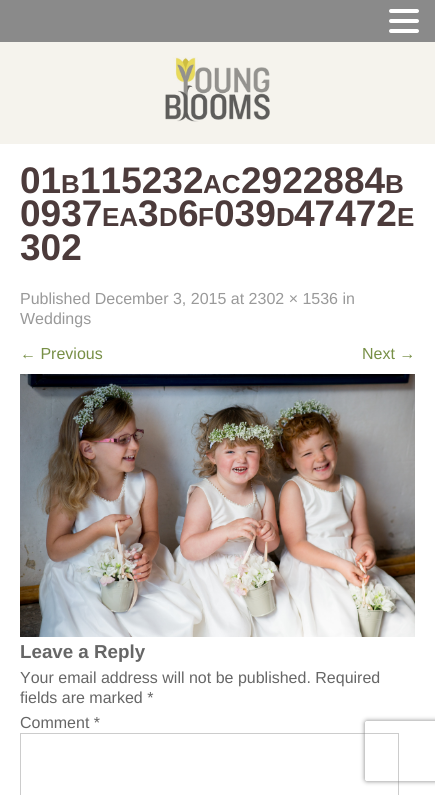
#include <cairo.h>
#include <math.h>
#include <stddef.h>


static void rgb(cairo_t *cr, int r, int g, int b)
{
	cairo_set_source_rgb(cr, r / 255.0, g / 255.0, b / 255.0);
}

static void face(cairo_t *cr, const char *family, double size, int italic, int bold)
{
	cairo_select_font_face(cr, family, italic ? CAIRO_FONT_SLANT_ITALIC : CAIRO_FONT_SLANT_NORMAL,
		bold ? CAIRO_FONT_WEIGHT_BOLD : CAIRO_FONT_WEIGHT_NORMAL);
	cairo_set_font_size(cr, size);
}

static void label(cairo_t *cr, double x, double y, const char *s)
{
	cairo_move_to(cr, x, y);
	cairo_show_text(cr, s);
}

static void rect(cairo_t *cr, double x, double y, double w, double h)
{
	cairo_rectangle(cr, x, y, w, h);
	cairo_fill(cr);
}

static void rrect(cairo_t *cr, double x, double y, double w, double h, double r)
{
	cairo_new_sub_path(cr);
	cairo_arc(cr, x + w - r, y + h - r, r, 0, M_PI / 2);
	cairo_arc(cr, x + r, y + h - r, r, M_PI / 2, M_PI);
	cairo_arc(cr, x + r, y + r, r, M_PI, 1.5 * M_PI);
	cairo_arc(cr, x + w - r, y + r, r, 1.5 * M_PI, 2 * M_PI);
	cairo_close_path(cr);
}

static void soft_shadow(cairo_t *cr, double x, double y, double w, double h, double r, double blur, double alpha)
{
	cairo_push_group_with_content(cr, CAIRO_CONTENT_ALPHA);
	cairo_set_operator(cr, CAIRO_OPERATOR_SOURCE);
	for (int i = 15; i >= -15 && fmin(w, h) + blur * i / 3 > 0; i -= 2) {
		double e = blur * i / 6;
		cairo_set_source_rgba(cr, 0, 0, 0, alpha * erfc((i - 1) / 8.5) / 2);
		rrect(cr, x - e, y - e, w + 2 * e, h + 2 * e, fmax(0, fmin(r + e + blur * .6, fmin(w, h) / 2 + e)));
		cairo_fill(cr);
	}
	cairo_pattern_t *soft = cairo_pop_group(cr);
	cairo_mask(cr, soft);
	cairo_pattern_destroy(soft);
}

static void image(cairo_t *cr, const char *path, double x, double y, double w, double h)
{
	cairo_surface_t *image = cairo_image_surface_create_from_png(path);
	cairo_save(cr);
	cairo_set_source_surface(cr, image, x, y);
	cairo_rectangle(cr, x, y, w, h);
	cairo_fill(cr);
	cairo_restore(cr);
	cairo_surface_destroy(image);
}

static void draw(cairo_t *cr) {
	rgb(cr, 255, 255, 255);
	cairo_paint(cr);
	rgb(cr, 245, 243, 237);
	rect(cr, 0, 42, 435, 102);
	image(cr, "image0.png", 165, 57, 105, 65);
	rgb(cr, 138, 138, 138);
	rect(cr, 0, 0, 435, 42);
	rgb(cr, 255, 255, 255);
	rrect(cr, 389, 9, 30, 4, 2);
	cairo_fill(cr);
	rrect(cr, 389, 19, 30, 4, 2);
	cairo_fill(cr);
	rrect(cr, 389, 29, 30, 4, 2);
	cairo_fill(cr);
	face(cr, "Liberation Sans", 37, 0, 1);
	rgb(cr, 76, 59, 59);
	label(cr, 20, 193, "01");
	face(cr, "Liberation Sans", 26, 0, 1);
	label(cr, 61, 193, "B");
	face(cr, "Liberation Sans", 37, 0, 1);
	label(cr, 80, 193, "115232");
	face(cr, "Liberation Sans", 26, 0, 1);
	label(cr, 203, 193, "AC");
	face(cr, "Liberation Sans", 37, 0, 1);
	label(cr, 241, 193, "2922884");
	face(cr, "Liberation Sans", 26, 0, 1);
	label(cr, 385, 193, "B");
	face(cr, "Liberation Sans", 37, 0, 1);
	label(cr, 20, 226, "0937");
	face(cr, "Liberation Sans", 26, 0, 1);
	label(cr, 102, 226, "EA");
	face(cr, "Liberation Sans", 37, 0, 1);
	label(cr, 138, 226, "3");
	face(cr, "Liberation Sans", 26, 0, 1);
	label(cr, 159, 226, "D");
	face(cr, "Liberation Sans", 37, 0, 1);
	label(cr, 178, 226, "6");
	face(cr, "Liberation Sans", 26, 0, 1);
	label(cr, 198, 226, "F");
	face(cr, "Liberation Sans", 37, 0, 1);
	label(cr, 214, 226, "039");
	face(cr, "Liberation Sans", 26, 0, 1);
	label(cr, 276, 226, "D");
	face(cr, "Liberation Sans", 37, 0, 1);
	label(cr, 294, 226, "47472");
	face(cr, "Liberation Sans", 26, 0, 1);
	label(cr, 397, 226, "E");
	face(cr, "Liberation Sans", 37, 0, 1);
	label(cr, 20, 260, "302");
	face(cr, "Liberation Sans", 16, 0, 0);
	rgb(cr, 153, 153, 153);
	label(cr, 20, 304, "Published December 3, 2015 at 2302 × 1536 in");
	label(cr, 20, 324, "Weddings");
	rgb(cr, 119, 143, 70);
	label(cr, 20, 359, "← Previous");
	label(cr, 362, 359, "Next →");
	image(cr, "image1.png", 20, 374, 395, 263);
	face(cr, "Liberation Sans", 18.75, 0, 1);
	rgb(cr, 102, 102, 102);
	label(cr, 20, 658, "Leave a Reply");
	face(cr, "Liberation Sans", 16, 0, 0);
	label(cr, 20, 683, "Your email address will not be published. Required");
	label(cr, 20, 703, "fields are marked *");
	label(cr, 20, 728, "Comment *");
	cairo_rectangle(cr, 20.5, 733.5, 378, 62);
	rgb(cr, 204, 204, 204);
	cairo_set_line_width(cr, 1);
	cairo_stroke(cr);
	cairo_save(cr);
	cairo_set_fill_rule(cr, CAIRO_FILL_RULE_EVEN_ODD);
	cairo_new_path(cr);
	cairo_move_to(cr, 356, 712);
	cairo_line_to(cr, 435, 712);
	cairo_line_to(cr, 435, 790);
	cairo_line_to(cr, 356, 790);
	cairo_close_path(cr);
	cairo_move_to(cr, 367, 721);
	cairo_line_to(cr, 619, 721);
	cairo_curve_to(cr, 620, 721, 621, 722, 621, 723);
	cairo_line_to(cr, 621, 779);
	cairo_curve_to(cr, 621, 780, 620, 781, 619, 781);
	cairo_line_to(cr, 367, 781);
	cairo_curve_to(cr, 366, 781, 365, 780, 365, 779);
	cairo_line_to(cr, 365, 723);
	cairo_curve_to(cr, 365, 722, 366, 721, 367, 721);
	cairo_close_path(cr);
	cairo_clip(cr);
	rgb(cr, 128, 128, 128);
	soft_shadow(cr, 365, 721, 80, 60, 2, 2.5, 1);
	cairo_restore(cr);
}

int main(void) {
	cairo_surface_t *surface = cairo_image_surface_create(CAIRO_FORMAT_RGB24, 435, 795);
	cairo_t *cr = cairo_create(surface);
	cairo_font_options_t *options = cairo_font_options_create();
	cairo_font_options_set_hint_metrics(options, CAIRO_HINT_METRICS_OFF);
	cairo_font_options_set_hint_style(options, CAIRO_HINT_STYLE_NONE);
	cairo_set_font_options(cr, options);
	cairo_set_miter_limit(cr, 4);
	draw(cr);
	cairo_surface_write_to_png(surface, "render.png");
	cairo_font_options_destroy(options);
	cairo_destroy(cr);
	cairo_surface_destroy(surface);
	return 0;
}
